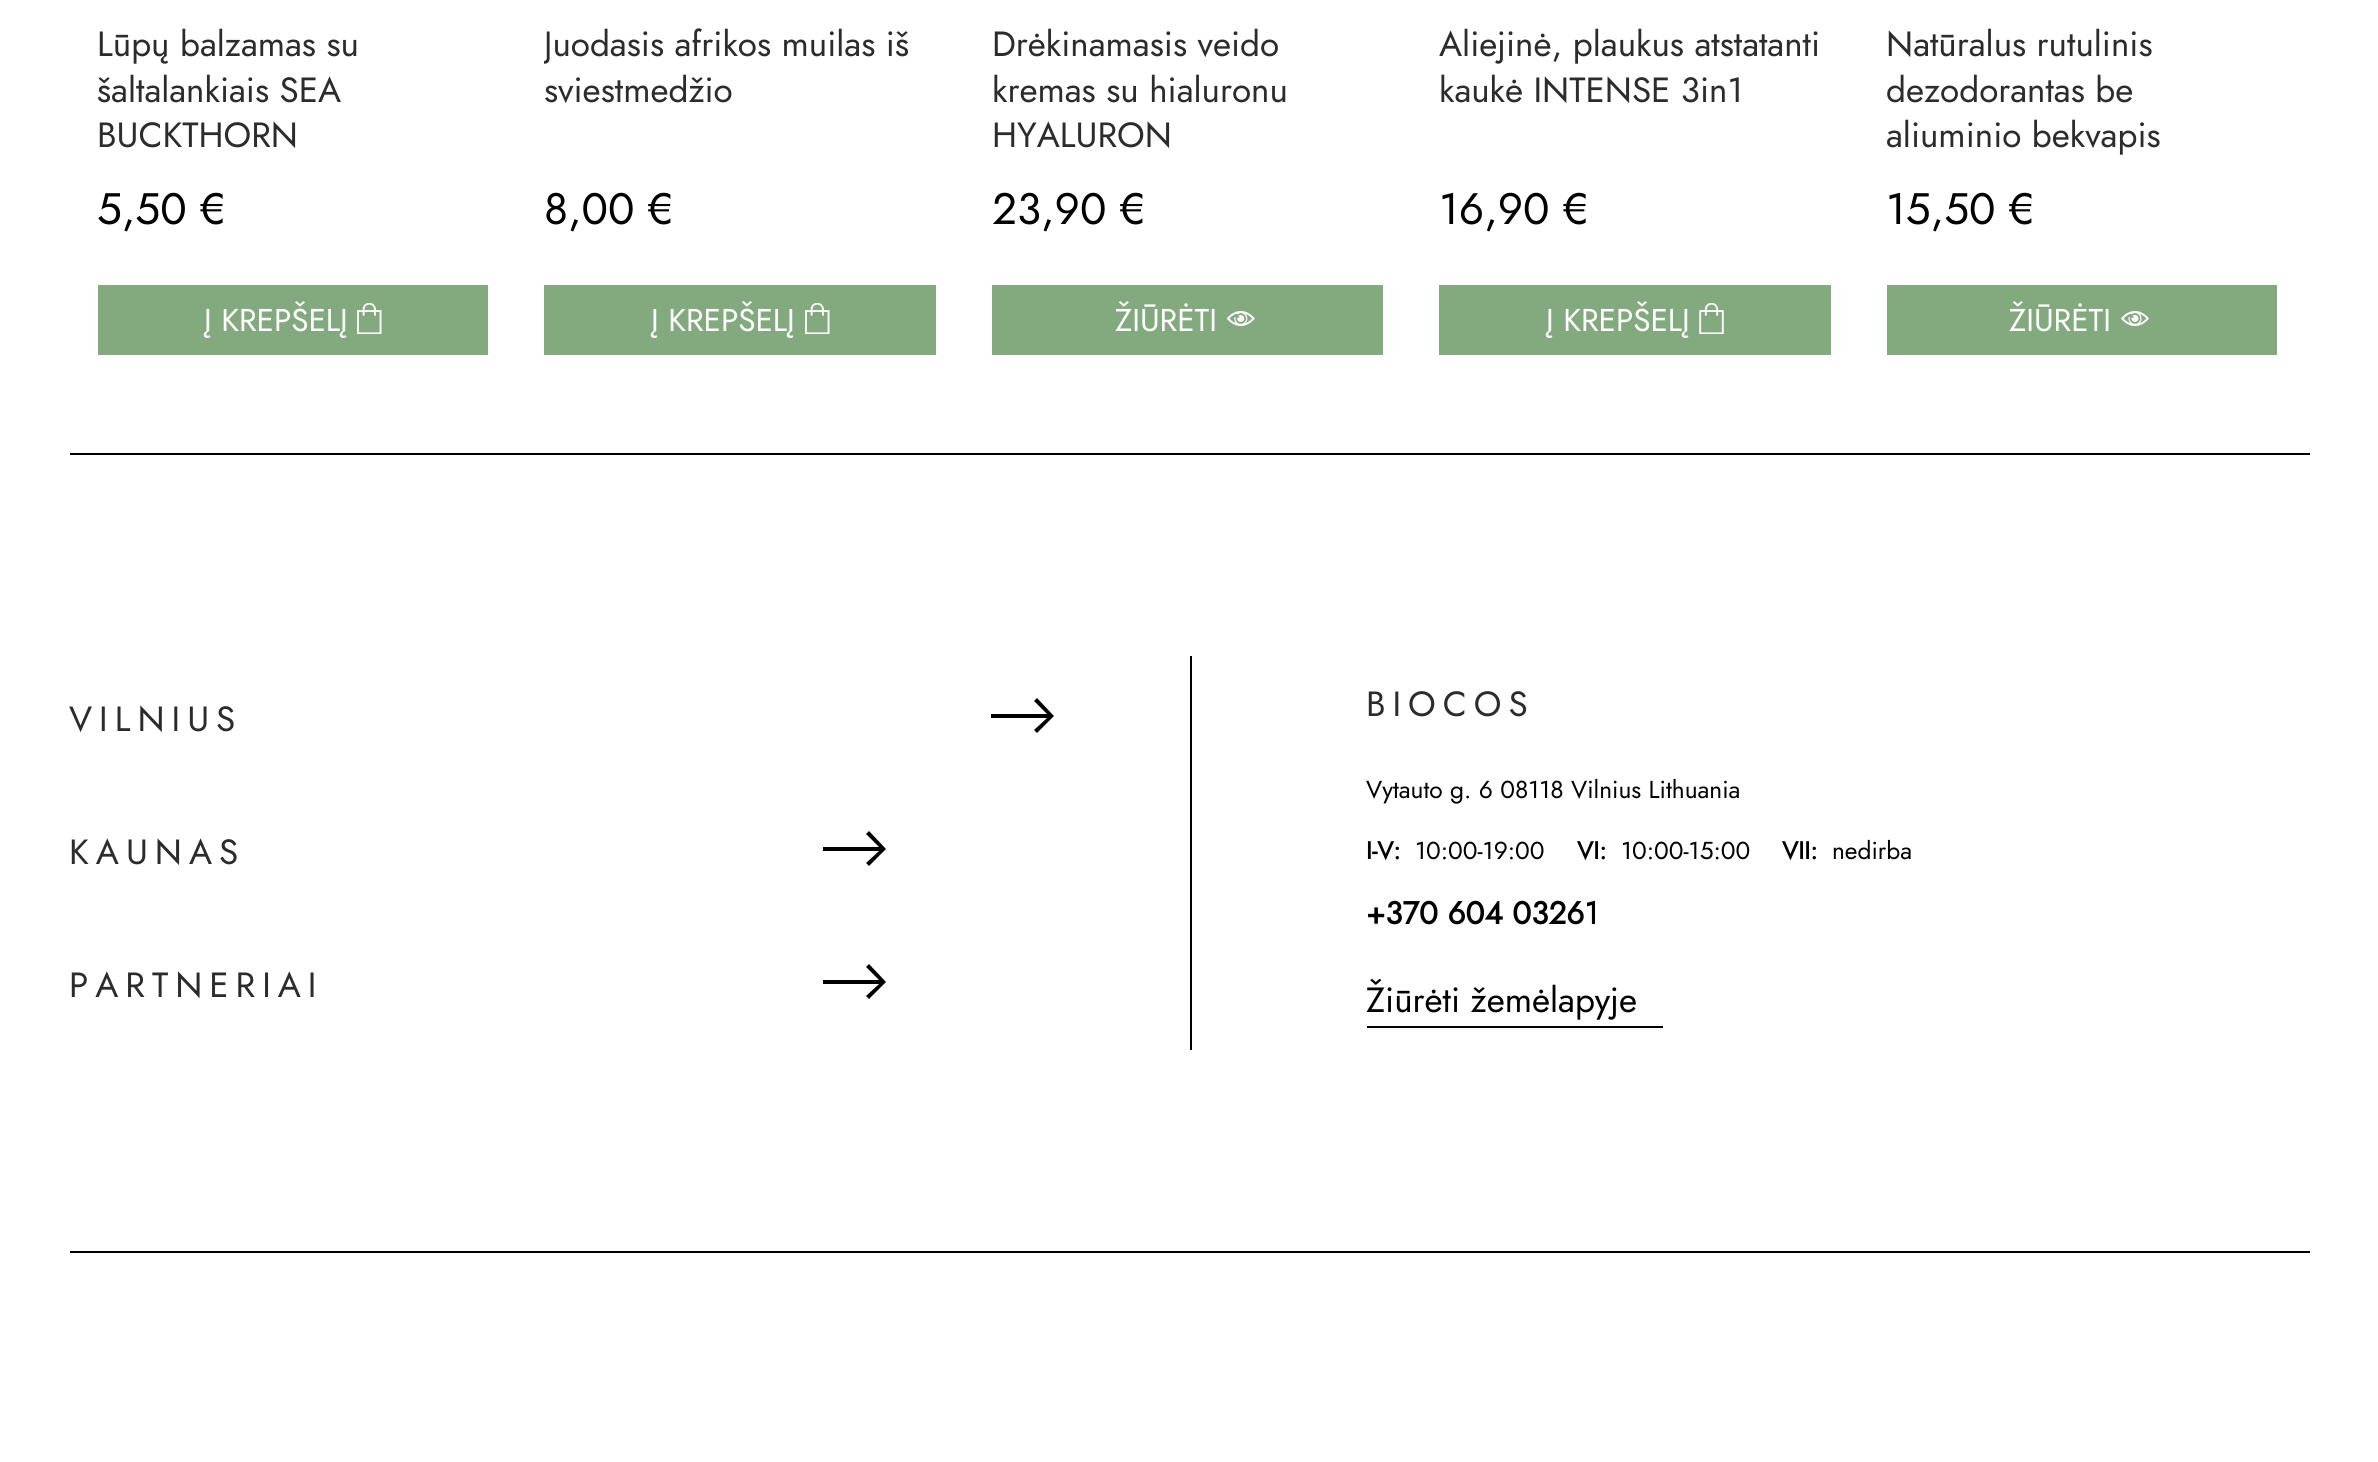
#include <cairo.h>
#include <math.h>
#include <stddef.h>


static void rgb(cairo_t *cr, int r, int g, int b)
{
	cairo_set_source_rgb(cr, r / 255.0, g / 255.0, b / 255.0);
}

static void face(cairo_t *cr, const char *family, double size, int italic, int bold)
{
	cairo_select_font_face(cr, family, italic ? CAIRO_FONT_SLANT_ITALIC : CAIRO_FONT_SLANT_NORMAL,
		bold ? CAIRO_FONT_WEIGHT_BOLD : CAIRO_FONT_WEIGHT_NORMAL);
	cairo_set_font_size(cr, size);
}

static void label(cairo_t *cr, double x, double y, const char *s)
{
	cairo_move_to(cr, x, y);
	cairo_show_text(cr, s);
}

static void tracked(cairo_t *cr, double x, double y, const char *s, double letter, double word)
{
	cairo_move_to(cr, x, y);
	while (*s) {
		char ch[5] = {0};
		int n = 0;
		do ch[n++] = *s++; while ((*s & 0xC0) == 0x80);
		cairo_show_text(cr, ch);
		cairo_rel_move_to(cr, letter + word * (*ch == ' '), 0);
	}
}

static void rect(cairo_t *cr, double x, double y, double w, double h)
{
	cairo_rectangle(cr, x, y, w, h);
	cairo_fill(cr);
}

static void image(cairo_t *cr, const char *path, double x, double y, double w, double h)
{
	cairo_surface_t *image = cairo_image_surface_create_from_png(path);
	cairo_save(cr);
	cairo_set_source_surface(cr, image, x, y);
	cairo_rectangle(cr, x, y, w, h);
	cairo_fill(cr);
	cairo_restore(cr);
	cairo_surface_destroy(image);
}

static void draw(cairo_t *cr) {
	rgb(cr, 255, 255, 255);
	cairo_paint(cr);
	face(cr, "Jost", 35, 0, 0);
	rgb(cr, 44, 44, 44);
	label(cr, 97, 56, "Lūpų balzamas su");
	label(cr, 97, 102, "šaltalankiais SEA");
	label(cr, 97, 147, "BUCKTHORN");
	face(cr, "Jost", 44, 0, 0);
	rgb(cr, 0, 0, 0);
	label(cr, 97, 224, "5,50 €");
	rgb(cr, 131, 170, 127);
	rect(cr, 98, 285, 390, 70);
	face(cr, "Jost", 31.5, 0, 0);
	rgb(cr, 255, 255, 255);
	label(cr, 204, 331, "Į KREPŠELĮ");
	image(cr, "image0.png", 357, 303, 25, 31);
	cairo_save(cr);
	cairo_rectangle(cr, 544, 23, 392, 91);
	cairo_clip(cr);
	face(cr, "Jost", 35, 0, 0);
	rgb(cr, 44, 44, 44);
	label(cr, 544, 56, "Juodasis afrikos muilas iš");
	cairo_restore(cr);
	face(cr, "Jost", 35, 0, 0);
	rgb(cr, 44, 44, 44);
	label(cr, 544, 102, "sviestmedžio");
	face(cr, "Jost", 44, 0, 0);
	rgb(cr, 0, 0, 0);
	label(cr, 544, 224, "8,00 €");
	rgb(cr, 131, 170, 127);
	rect(cr, 544, 285, 392, 70);
	face(cr, "Jost", 31.5, 0, 0);
	rgb(cr, 255, 255, 255);
	label(cr, 651, 331, "Į KREPŠELĮ");
	image(cr, "image0.png", 805, 303, 25, 31);
	face(cr, "Jost", 35, 0, 0);
	rgb(cr, 44, 44, 44);
	label(cr, 992, 56, "Drėkinamasis veido");
	label(cr, 992, 102, "kremas su hialuronu");
	label(cr, 992, 147, "HYALURON");
	face(cr, "Jost", 44, 0, 0);
	rgb(cr, 0, 0, 0);
	label(cr, 992, 224, "23,90 €");
	rgb(cr, 131, 170, 127);
	rect(cr, 992, 285, 391, 70);
	face(cr, "Jost", 31.5, 0, 0);
	rgb(cr, 255, 255, 255);
	label(cr, 1115, 331, "ŽIŪRĖTI");
	image(cr, "image1.png", 1227, 310, 28, 17);
	face(cr, "Jost", 35, 0, 0);
	rgb(cr, 44, 44, 44);
	label(cr, 1439, 56, "Aliejinė, plaukus atstatanti");
	label(cr, 1439, 102, "kaukė INTENSE 3in1");
	face(cr, "Jost", 44, 0, 0);
	rgb(cr, 0, 0, 0);
	label(cr, 1439, 224, "16,90 €");
	rgb(cr, 131, 170, 127);
	rect(cr, 1439, 285, 392, 70);
	face(cr, "Jost", 31.5, 0, 0);
	rgb(cr, 255, 255, 255);
	label(cr, 1546, 331, "Į KREPŠELĮ");
	image(cr, "image2.png", 1699, 303, 25, 31);
	face(cr, "Jost", 35, 0, 0);
	rgb(cr, 44, 44, 44);
	label(cr, 1886, 56, "Natūralus rutulinis");
	label(cr, 1886, 102, "dezodorantas be");
	label(cr, 1886, 147, "aliuminio bekvapis");
	face(cr, "Jost", 44, 0, 0);
	rgb(cr, 0, 0, 0);
	label(cr, 1886, 224, "15,50 €");
	rgb(cr, 131, 170, 127);
	rect(cr, 1887, 285, 390, 70);
	face(cr, "Jost", 31.5, 0, 0);
	rgb(cr, 255, 255, 255);
	label(cr, 2009, 331, "ŽIŪRĖTI");
	image(cr, "image3.png", 2121, 310, 28, 17);
	rgb(cr, 0, 0, 0);
	rect(cr, 70, 453, 2240, 2);
	rect(cr, 70, 1251, 2240, 2);
	face(cr, "Jost", 35, 0, 0);
	rgb(cr, 44, 44, 44);
	tracked(cr, 69, 731, "VILNIUS", 7, 0);
	cairo_save(cr);
	cairo_rectangle(cr, 991, 698, 63, 35);
	cairo_clip(cr);
	rgb(cr, 0, 0, 0);
	cairo_new_path(cr);
	cairo_move_to(cr, 1037, 698);
	cairo_line_to(cr, 1034, 701);
	cairo_line_to(cr, 1047, 714);
	cairo_line_to(cr, 990, 714);
	cairo_line_to(cr, 990, 718);
	cairo_line_to(cr, 1047, 718);
	cairo_line_to(cr, 1034, 730);
	cairo_line_to(cr, 1037, 733);
	cairo_line_to(cr, 1054, 716);
	cairo_close_path(cr);
	cairo_fill(cr);
	cairo_restore(cr);
	tracked(cr, 69, 864, "KAUNAS", 7, 0);
	cairo_save(cr);
	cairo_rectangle(cr, 823, 831, 63, 35);
	cairo_clip(cr);
	rgb(cr, 0, 0, 0);
	cairo_new_path(cr);
	cairo_move_to(cr, 869, 831);
	cairo_line_to(cr, 866, 834);
	cairo_line_to(cr, 879, 847);
	cairo_line_to(cr, 822, 847);
	cairo_line_to(cr, 822, 851);
	cairo_line_to(cr, 879, 851);
	cairo_line_to(cr, 866, 863);
	cairo_line_to(cr, 869, 866);
	cairo_line_to(cr, 886, 849);
	cairo_close_path(cr);
	cairo_fill(cr);
	cairo_restore(cr);
	tracked(cr, 69, 997, "PARTNERIAI", 7, 0);
	cairo_save(cr);
	cairo_rectangle(cr, 823, 964, 63, 35);
	cairo_clip(cr);
	rgb(cr, 0, 0, 0);
	cairo_new_path(cr);
	cairo_move_to(cr, 869, 964);
	cairo_line_to(cr, 866, 967);
	cairo_line_to(cr, 879, 980);
	cairo_line_to(cr, 822, 980);
	cairo_line_to(cr, 822, 984);
	cairo_line_to(cr, 879, 984);
	cairo_line_to(cr, 866, 996);
	cairo_line_to(cr, 869, 999);
	cairo_line_to(cr, 886, 982);
	cairo_close_path(cr);
	cairo_fill(cr);
	cairo_restore(cr);
	rgb(cr, 0, 0, 0);
	rect(cr, 1190, 656, 2, 394);
	rgb(cr, 44, 44, 44);
	tracked(cr, 1366, 716, "BIOCOS", 7, 0);
	face(cr, "Jost", 24.5, 0, 0);
	rgb(cr, 0, 0, 0);
	label(cr, 1366, 798, "Vytauto g. 6 08118 Vilnius Lithuania");
	face(cr, "Jost", 24.5, 0, 1);
	label(cr, 1366, 859, "I-V:");
	face(cr, "Jost", 24.5, 0, 0);
	label(cr, 1415, 859, "10:00-19:00");
	face(cr, "Jost", 24.5, 0, 1);
	label(cr, 1577, 859, "VI:");
	face(cr, "Jost", 24.5, 0, 0);
	label(cr, 1621, 859, "10:00-15:00");
	face(cr, "Jost", 24.5, 0, 1);
	label(cr, 1782, 859, "VII:");
	face(cr, "Jost", 24.5, 0, 0);
	label(cr, 1832, 859, "nedirba");
	face(cr, "Jost", 31.5, 0, 1);
	label(cr, 1366, 924, "+370 604 03261");
	face(cr, "Jost", 35, 0, 0);
	label(cr, 1366, 1012, "Žiūrėti žemėlapyje");
	rect(cr, 1367, 1026, 296, 2);
}

int main(void) {
	cairo_surface_t *surface = cairo_image_surface_create(CAIRO_FORMAT_RGB24, 2378, 1462);
	cairo_t *cr = cairo_create(surface);
	cairo_font_options_t *options = cairo_font_options_create();
	cairo_font_options_set_hint_metrics(options, CAIRO_HINT_METRICS_OFF);
	cairo_font_options_set_hint_style(options, CAIRO_HINT_STYLE_NONE);
	cairo_set_font_options(cr, options);
	cairo_set_miter_limit(cr, 4);
	draw(cr);
	cairo_surface_write_to_png(surface, "render.png");
	cairo_font_options_destroy(options);
	cairo_destroy(cr);
	cairo_surface_destroy(surface);
	return 0;
}
